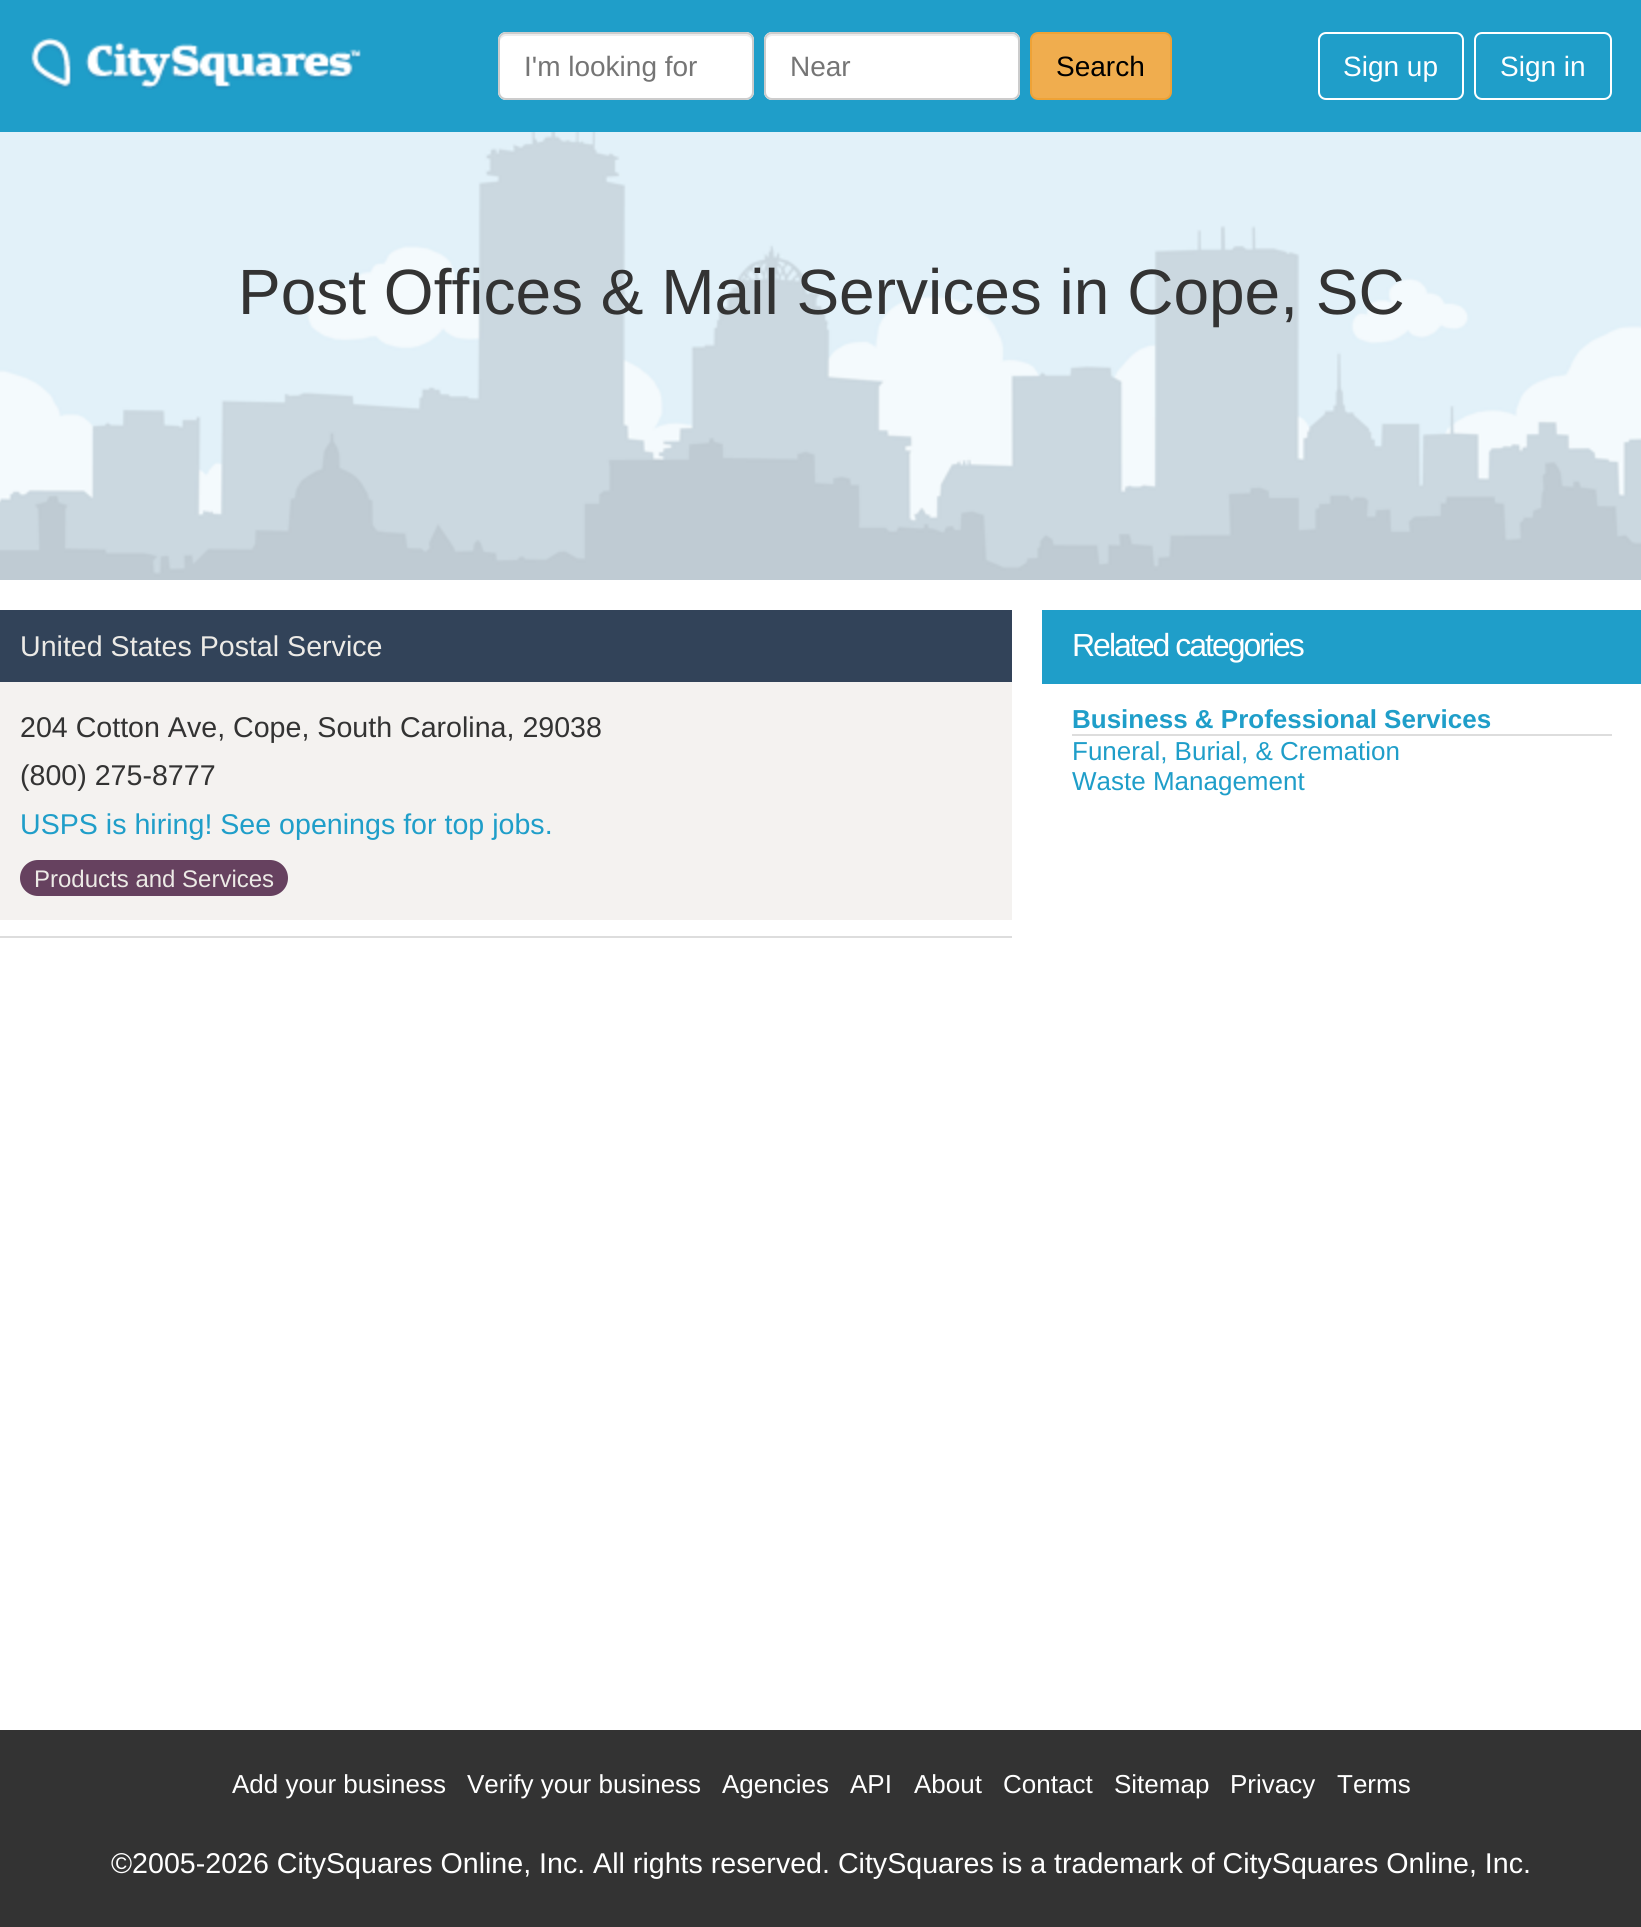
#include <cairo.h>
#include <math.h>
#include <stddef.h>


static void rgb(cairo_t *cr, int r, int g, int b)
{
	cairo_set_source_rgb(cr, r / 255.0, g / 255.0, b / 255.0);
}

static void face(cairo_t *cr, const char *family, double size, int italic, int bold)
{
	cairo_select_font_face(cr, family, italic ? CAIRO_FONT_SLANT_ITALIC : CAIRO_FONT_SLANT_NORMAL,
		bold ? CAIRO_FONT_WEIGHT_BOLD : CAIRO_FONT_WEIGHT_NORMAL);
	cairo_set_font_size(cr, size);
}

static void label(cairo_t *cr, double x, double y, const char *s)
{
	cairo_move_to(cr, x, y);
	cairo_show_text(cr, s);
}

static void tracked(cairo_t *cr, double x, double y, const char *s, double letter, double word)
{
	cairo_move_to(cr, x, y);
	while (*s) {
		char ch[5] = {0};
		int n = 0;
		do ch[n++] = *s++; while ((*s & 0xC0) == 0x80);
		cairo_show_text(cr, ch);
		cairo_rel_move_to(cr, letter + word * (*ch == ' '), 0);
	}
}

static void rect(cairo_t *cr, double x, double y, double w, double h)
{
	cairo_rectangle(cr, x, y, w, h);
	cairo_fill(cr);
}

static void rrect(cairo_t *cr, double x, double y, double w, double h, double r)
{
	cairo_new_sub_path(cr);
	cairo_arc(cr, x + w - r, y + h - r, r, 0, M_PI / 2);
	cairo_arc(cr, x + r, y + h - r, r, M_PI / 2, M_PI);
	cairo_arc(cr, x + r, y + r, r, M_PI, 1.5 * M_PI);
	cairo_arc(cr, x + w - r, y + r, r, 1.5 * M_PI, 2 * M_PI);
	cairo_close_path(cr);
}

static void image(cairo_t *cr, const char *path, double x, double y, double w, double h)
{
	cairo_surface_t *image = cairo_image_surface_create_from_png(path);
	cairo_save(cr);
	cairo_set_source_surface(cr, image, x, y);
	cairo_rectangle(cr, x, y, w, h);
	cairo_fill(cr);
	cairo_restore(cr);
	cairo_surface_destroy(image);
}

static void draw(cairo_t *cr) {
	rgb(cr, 255, 255, 255);
	cairo_paint(cr);
	rgb(cr, 31, 158, 201);
	rect(cr, 0, 0, 1641, 132);
	image(cr, "image0.png", 30, 38, 331, 52);
	rgb(cr, 255, 255, 255);
	rrect(cr, 498, 32, 256, 68, 8);
	cairo_fill(cr);
	rgb(cr, 236, 236, 236);
	cairo_new_path(cr);
	cairo_move_to(cr, 506, 36);
	cairo_line_to(cr, 746, 36);
	cairo_curve_to(cr, 749, 36, 752, 39, 752, 42);
	cairo_curve_to(cr, 752, 39, 751, 35, 747, 34);
	cairo_line_to(cr, 506, 34);
	cairo_curve_to(cr, 501, 34, 500, 38, 500, 42);
	cairo_curve_to(cr, 500, 39, 503, 36, 506, 36);
	cairo_close_path(cr);
	cairo_fill(cr);
	rrect(cr, 499, 33, 254, 66, 7);
	rgb(cr, 204, 204, 204);
	cairo_stroke(cr);
	face(cr, "Liberation Sans", 28, 0, 0);
	rgb(cr, 117, 117, 117);
	label(cr, 524, 76, "I'm looking for");
	rgb(cr, 255, 255, 255);
	rrect(cr, 764, 32, 256, 68, 8);
	cairo_fill(cr);
	rgb(cr, 236, 236, 236);
	cairo_new_path(cr);
	cairo_move_to(cr, 772, 36);
	cairo_line_to(cr, 1012, 36);
	cairo_curve_to(cr, 1015, 36, 1018, 39, 1018, 42);
	cairo_curve_to(cr, 1018, 39, 1017, 35, 1013, 34);
	cairo_line_to(cr, 772, 34);
	cairo_curve_to(cr, 767, 34, 766, 38, 766, 42);
	cairo_curve_to(cr, 766, 39, 769, 36, 772, 36);
	cairo_close_path(cr);
	cairo_fill(cr);
	rrect(cr, 765, 33, 254, 66, 7);
	rgb(cr, 204, 204, 204);
	cairo_stroke(cr);
	rgb(cr, 117, 117, 117);
	label(cr, 790, 76, "Near");
	rgb(cr, 240, 173, 78);
	rrect(cr, 1031, 33, 140, 66, 7);
	cairo_fill_preserve(cr);
	rgb(cr, 238, 162, 54);
	cairo_stroke(cr);
	rgb(cr, 0, 0, 0);
	label(cr, 1056, 76, "Search");
	rrect(cr, 1319, 33, 144, 66, 7);
	rgb(cr, 255, 255, 255);
	cairo_stroke(cr);
	label(cr, 1343, 76, "Sign up");
	rrect(cr, 1475, 33, 136, 66, 7);
	cairo_stroke(cr);
	label(cr, 1500, 76, "Sign in");
	image(cr, "image1.png", 0, 132, 1641, 448);
	face(cr, "Liberation Sans", 64, 0, 0);
	rgb(cr, 51, 51, 51);
	label(cr, 238, 314, "Post Offices & Mail Services in Cope, SC");
	rgb(cr, 244, 242, 240);
	rect(cr, 0, 682, 1012, 238);
	rgb(cr, 50, 67, 89);
	rect(cr, 0, 610, 1012, 72);
	face(cr, "Liberation Sans", 28.6, 0, 0);
	rgb(cr, 236, 234, 230);
	label(cr, 20, 656, "United States Postal Service");
	rgb(cr, 51, 51, 51);
	label(cr, 20, 737, "204 Cotton Ave, Cope, South Carolina, 29038");
	label(cr, 20, 785, "(800) 275-8777");
	rgb(cr, 31, 158, 201);
	label(cr, 20, 834, "USPS is hiring! See openings for top jobs.");
	rgb(cr, 102, 65, 95);
	rrect(cr, 20, 860, 268, 36, 18);
	cairo_fill(cr);
	face(cr, "Liberation Sans", 24, 0, 0);
	rgb(cr, 236, 234, 230);
	label(cr, 34, 887, "Products and Services");
	rgb(cr, 221, 221, 221);
	rect(cr, 0, 936, 1012, 2);
	rgb(cr, 31, 158, 201);
	rect(cr, 1042, 610, 599, 74);
	face(cr, "Liberation Sans", 32, 0, 0);
	rgb(cr, 255, 255, 255);
	tracked(cr, 1072, 656, "Related categories", -2, 0);
	face(cr, "Liberation Sans", 26, 0, 1);
	rgb(cr, 31, 158, 201);
	label(cr, 1072, 728, "Business & Professional Services");
	rgb(cr, 221, 221, 221);
	rect(cr, 1072, 734, 540, 2);
	face(cr, "Liberation Sans", 26, 0, 0);
	rgb(cr, 31, 158, 201);
	label(cr, 1072, 760, "Funeral, Burial, & Cremation");
	label(cr, 1072, 790, "Waste Management");
	rgb(cr, 51, 51, 51);
	rect(cr, 0, 1730, 1641, 197);
	rgb(cr, 255, 255, 255);
	label(cr, 232, 1793, "Add your business");
	label(cr, 467, 1793, "Verify your business");
	label(cr, 722, 1793, "Agencies");
	label(cr, 850, 1793, "API");
	label(cr, 914, 1793, "About");
	label(cr, 1003, 1793, "Contact");
	label(cr, 1114, 1793, "Sitemap");
	label(cr, 1230, 1793, "Privacy");
	label(cr, 1337, 1793, "Terms");
	face(cr, "Liberation Sans", 28.6, 0, 0);
	label(cr, 111, 1873, "©2005-2026 CitySquares Online, Inc. All rights reserved. CitySquares is a trademark of CitySquares Online, Inc.");
}

int main(void) {
	cairo_surface_t *surface = cairo_image_surface_create(CAIRO_FORMAT_RGB24, 1641, 1927);
	cairo_t *cr = cairo_create(surface);
	cairo_font_options_t *options = cairo_font_options_create();
	cairo_font_options_set_hint_metrics(options, CAIRO_HINT_METRICS_OFF);
	cairo_font_options_set_hint_style(options, CAIRO_HINT_STYLE_NONE);
	cairo_set_font_options(cr, options);
	cairo_set_miter_limit(cr, 4);
	draw(cr);
	cairo_surface_write_to_png(surface, "render.png");
	cairo_font_options_destroy(options);
	cairo_destroy(cr);
	cairo_surface_destroy(surface);
	return 0;
}
